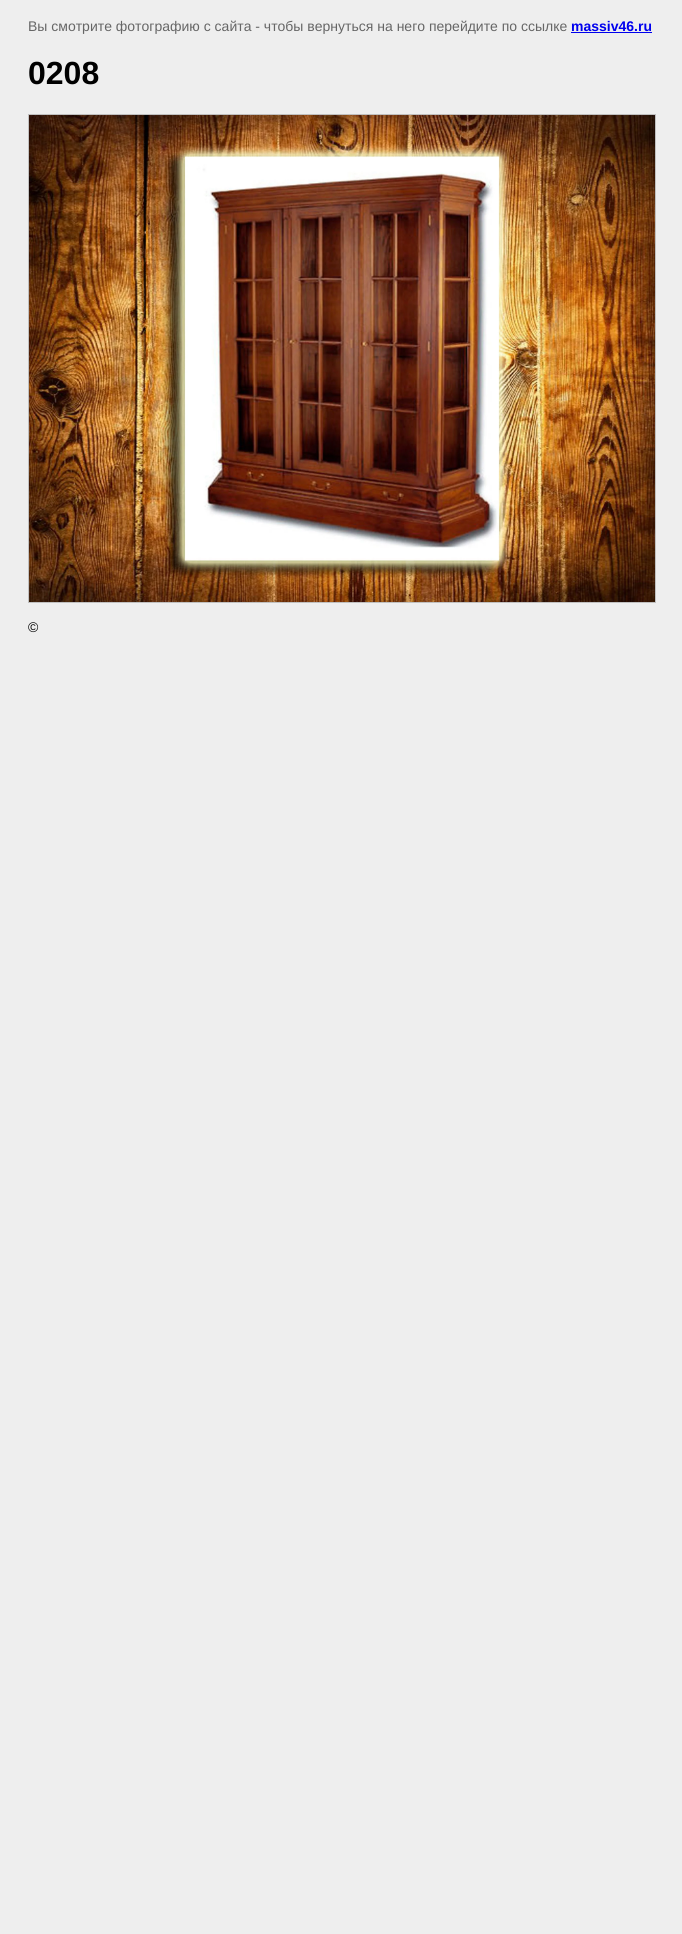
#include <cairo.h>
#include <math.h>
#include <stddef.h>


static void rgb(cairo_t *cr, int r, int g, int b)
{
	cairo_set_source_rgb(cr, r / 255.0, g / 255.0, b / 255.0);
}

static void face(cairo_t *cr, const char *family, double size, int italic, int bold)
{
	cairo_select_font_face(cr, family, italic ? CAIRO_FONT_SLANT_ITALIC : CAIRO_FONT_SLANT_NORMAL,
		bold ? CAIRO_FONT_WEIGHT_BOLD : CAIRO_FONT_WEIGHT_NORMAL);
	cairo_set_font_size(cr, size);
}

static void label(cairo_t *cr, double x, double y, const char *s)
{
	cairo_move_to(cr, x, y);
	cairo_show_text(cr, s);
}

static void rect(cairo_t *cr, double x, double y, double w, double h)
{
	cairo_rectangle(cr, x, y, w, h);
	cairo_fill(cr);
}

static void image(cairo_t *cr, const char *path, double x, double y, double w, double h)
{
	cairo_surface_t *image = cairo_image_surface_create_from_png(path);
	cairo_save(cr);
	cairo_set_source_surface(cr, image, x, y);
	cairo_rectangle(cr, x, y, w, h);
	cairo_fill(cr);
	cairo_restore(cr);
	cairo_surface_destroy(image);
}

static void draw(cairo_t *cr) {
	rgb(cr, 238, 238, 238);
	cairo_paint(cr);
	face(cr, "Liberation Sans", 14, 0, 0);
	rgb(cr, 102, 102, 102);
	label(cr, 28, 31, "Вы смотрите фотографию с сайта - чтобы вернуться на него перейдите по ссылке");
	face(cr, "Liberation Sans", 14, 0, 1);
	rgb(cr, 0, 0, 238);
	label(cr, 571, 31, "massiv46.ru");
	rect(cr, 571, 32, 81, 1);
	face(cr, "Liberation Sans", 32, 0, 1);
	rgb(cr, 0, 0, 0);
	label(cr, 28, 84, "0208");
	cairo_rectangle(cr, 28.5, 114.5, 627, 488);
	rgb(cr, 192, 192, 192);
	cairo_set_line_width(cr, 1);
	cairo_stroke(cr);
	image(cr, "image0.png", 29, 115, 626, 487);
	face(cr, "Liberation Sans", 14, 0, 0);
	rgb(cr, 0, 0, 0);
	label(cr, 28, 632, "©");
}

int main(void) {
	cairo_surface_t *surface = cairo_image_surface_create(CAIRO_FORMAT_RGB24, 682, 1934);
	cairo_t *cr = cairo_create(surface);
	cairo_font_options_t *options = cairo_font_options_create();
	cairo_font_options_set_hint_metrics(options, CAIRO_HINT_METRICS_OFF);
	cairo_font_options_set_hint_style(options, CAIRO_HINT_STYLE_NONE);
	cairo_set_font_options(cr, options);
	cairo_set_miter_limit(cr, 4);
	draw(cr);
	cairo_surface_write_to_png(surface, "render.png");
	cairo_font_options_destroy(options);
	cairo_destroy(cr);
	cairo_surface_destroy(surface);
	return 0;
}
